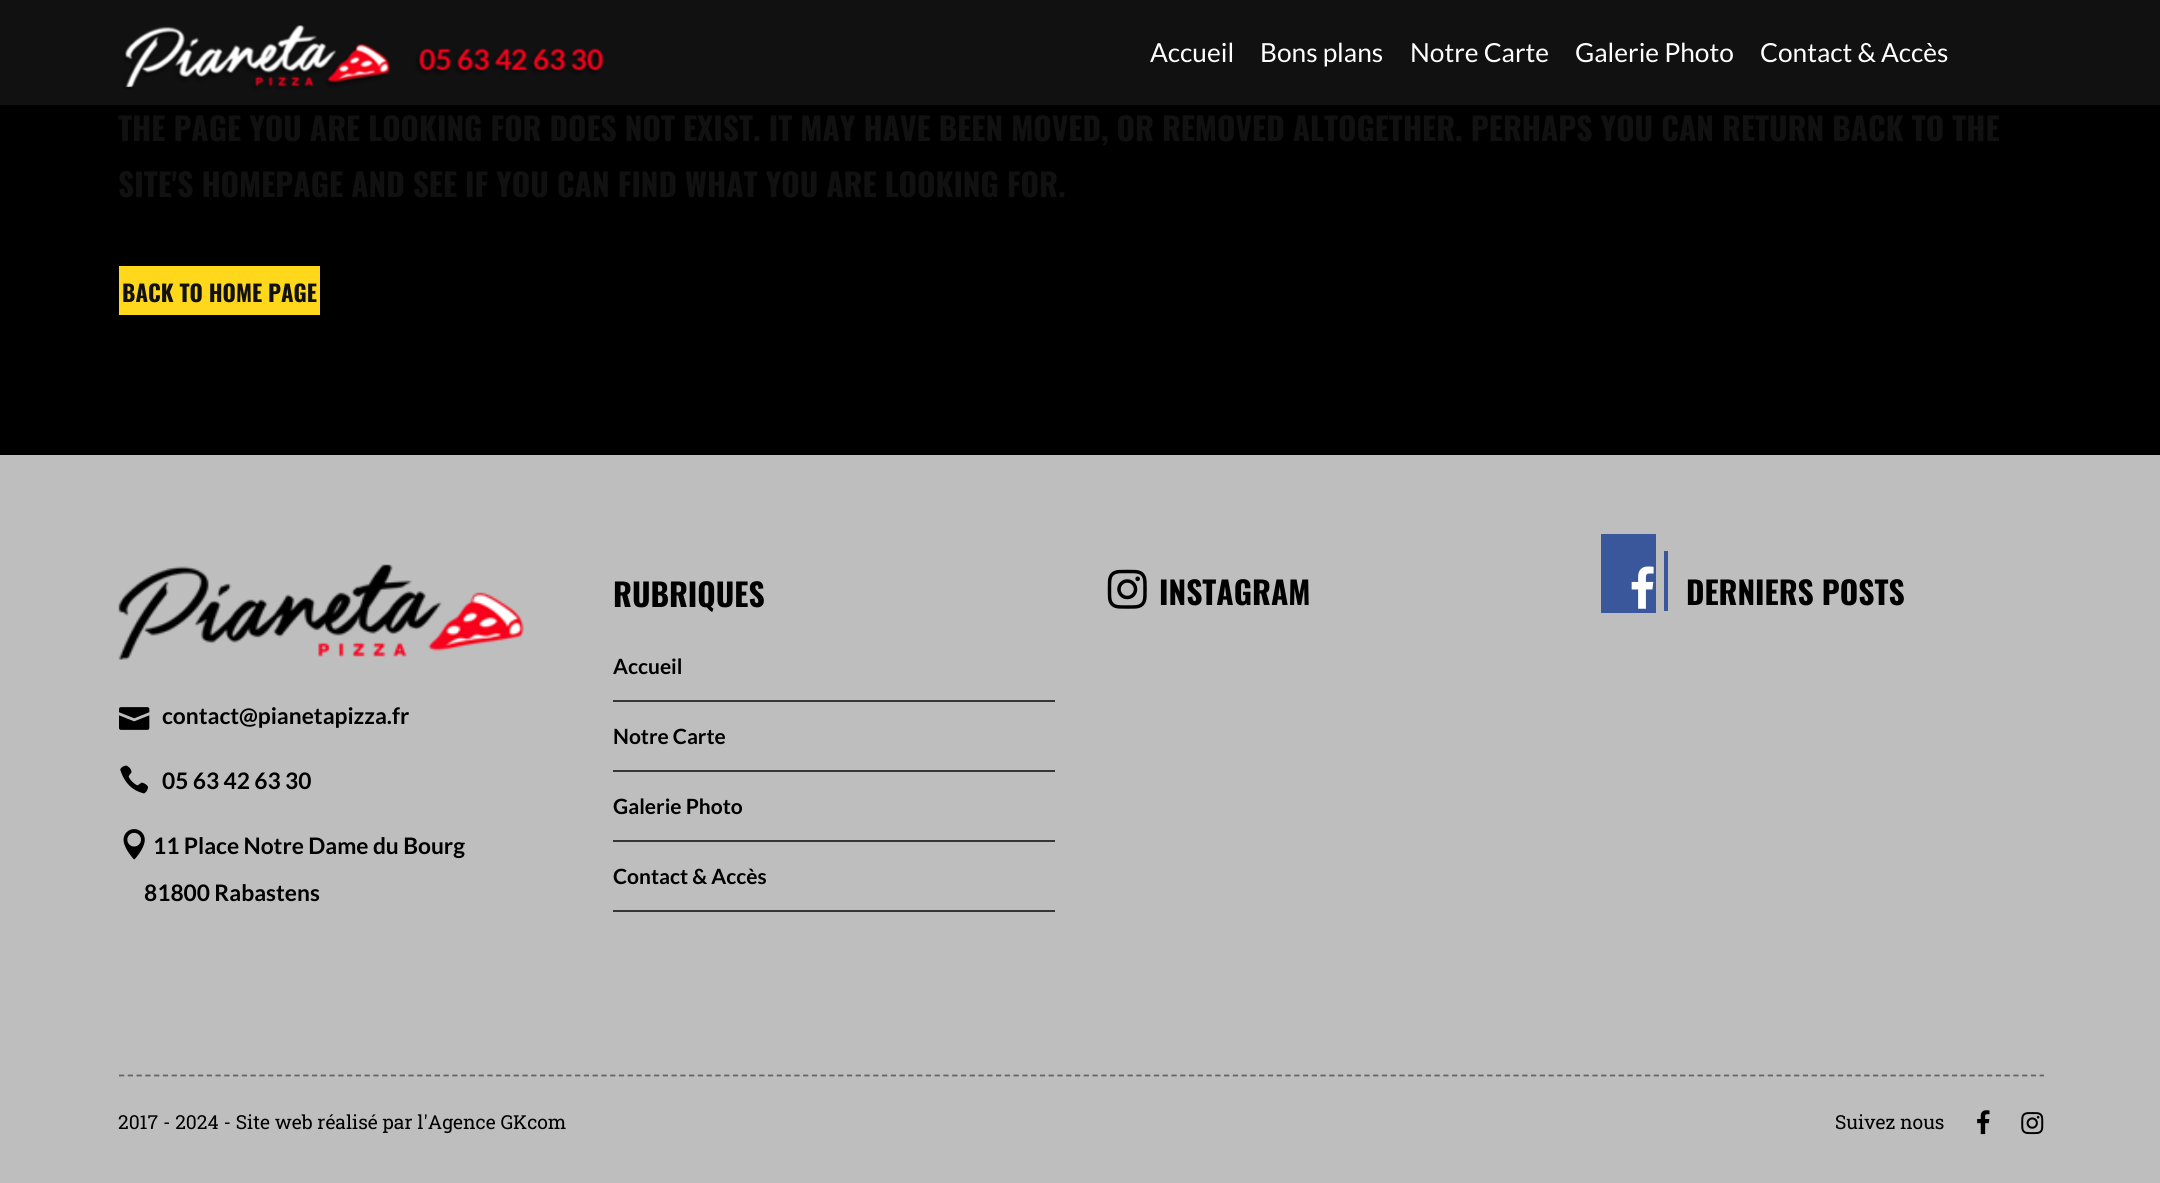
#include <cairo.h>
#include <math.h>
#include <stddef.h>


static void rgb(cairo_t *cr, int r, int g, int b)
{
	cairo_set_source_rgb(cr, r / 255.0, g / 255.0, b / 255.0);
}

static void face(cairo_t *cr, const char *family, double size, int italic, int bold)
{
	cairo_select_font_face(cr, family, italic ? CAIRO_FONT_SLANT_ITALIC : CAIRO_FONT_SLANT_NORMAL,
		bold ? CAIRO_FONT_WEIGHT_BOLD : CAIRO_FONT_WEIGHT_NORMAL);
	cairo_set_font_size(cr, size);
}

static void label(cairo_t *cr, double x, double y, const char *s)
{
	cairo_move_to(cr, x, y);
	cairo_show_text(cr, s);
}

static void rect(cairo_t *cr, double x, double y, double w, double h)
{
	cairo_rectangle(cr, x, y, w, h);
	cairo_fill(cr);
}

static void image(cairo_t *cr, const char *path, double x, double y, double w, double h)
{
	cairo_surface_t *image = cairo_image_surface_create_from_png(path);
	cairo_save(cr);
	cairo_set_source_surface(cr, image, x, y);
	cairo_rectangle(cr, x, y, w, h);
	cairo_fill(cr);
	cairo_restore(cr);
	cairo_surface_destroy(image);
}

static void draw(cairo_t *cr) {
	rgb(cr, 0, 0, 0);
	cairo_paint(cr);
	rgb(cr, 17, 17, 17);
	rect(cr, 0, 0, 2160, 105);
	image(cr, "image0.png", 124, 25, 480, 65);
	face(cr, "Lato", 26.25, 0, 0);
	rgb(cr, 255, 255, 255);
	label(cr, 1150, 62, "Accueil");
	label(cr, 1260, 62, "Bons plans");
	label(cr, 1410, 62, "Notre Carte");
	label(cr, 1575, 62, "Galerie Photo");
	label(cr, 1760, 62, "Contact & Accès");
	face(cr, "Oswald", 31.5, 0, 1);
	rgb(cr, 17, 17, 17);
	label(cr, 118, 141, "THE PAGE YOU ARE LOOKING FOR DOES NOT EXIST. IT MAY HAVE BEEN MOVED, OR REMOVED ALTOGETHER. PERHAPS YOU CAN RETURN BACK TO THE");
	label(cr, 118, 197, "SITE'S HOMEPAGE AND SEE IF YOU CAN FIND WHAT YOU ARE LOOKING FOR.");
	rgb(cr, 255, 215, 27);
	rect(cr, 119, 266, 201, 49);
	face(cr, "Oswald", 22.75, 0, 1);
	rgb(cr, 17, 17, 17);
	label(cr, 122, 302, "BACK TO HOME PAGE");
	rgb(cr, 190, 190, 190);
	rect(cr, 0, 455, 2160, 728);
	cairo_new_path(cr);
	cairo_move_to(cr, 119, 1075.5);
	cairo_line_to(cr, 2044, 1075.5);
	rgb(cr, 102, 102, 102);
	cairo_set_line_width(cr, 1.8);
	cairo_set_dash(cr, (double[]){5.25, 3.52}, 2, 0);
	cairo_stroke(cr);
	image(cr, "image1.png", 118, 564, 406, 96);
	image(cr, "image2.png", 119, 707, 31, 23);
	face(cr, "Lato", 22.75, 0, 1);
	rgb(cr, 0, 0, 0);
	label(cr, 162, 724, "contact@pianetapizza.fr");
	image(cr, "image3.png", 120, 765, 29, 29);
	label(cr, 162, 789, "05 63 42 63 30");
	image(cr, "image4.png", 123, 829, 22, 31);
	label(cr, 153, 854, "11 Place Notre Dame du Bourg");
	label(cr, 144, 901, "81800 Rabastens");
	face(cr, "Oswald", 31.5, 0, 1);
	label(cr, 613, 607, "RUBRIQUES");
	rgb(cr, 54, 54, 54);
	rect(cr, 613, 700, 442, 2);
	face(cr, "Lato", 21, 0, 1);
	rgb(cr, 0, 0, 0);
	label(cr, 613, 674, "Accueil");
	rgb(cr, 54, 54, 54);
	rect(cr, 613, 770, 442, 2);
	rgb(cr, 0, 0, 0);
	label(cr, 613, 744, "Notre Carte");
	rgb(cr, 54, 54, 54);
	rect(cr, 613, 840, 442, 2);
	rgb(cr, 0, 0, 0);
	label(cr, 613, 814, "Galerie Photo");
	rgb(cr, 54, 54, 54);
	rect(cr, 613, 910, 442, 2);
	rgb(cr, 0, 0, 0);
	label(cr, 613, 884, "Contact & Accès");
	image(cr, "image5.png", 1107, 569, 40, 40);
	face(cr, "Oswald", 31.5, 0, 1);
	label(cr, 1159, 605, "INSTAGRAM");
	rgb(cr, 57, 87, 154);
	rect(cr, 1601, 534, 55, 79);
	rect(cr, 1664, 551, 4, 60);
	image(cr, "image6.png", 1631, 566, 23, 43);
	rgb(cr, 0, 0, 0);
	label(cr, 1686, 605, "DERNIERS POSTS");
	face(cr, "Roboto Slab", 19.25, 0, 0);
	label(cr, 118, 1129, "2017 - 2024 - Site web réalisé par l'Agence GKcom");
	label(cr, 1835, 1129, "Suivez nous");
	image(cr, "image7.png", 1977, 1110, 13, 25);
	image(cr, "image8.png", 2021, 1112, 23, 23);
}

int main(void) {
	cairo_surface_t *surface = cairo_image_surface_create(CAIRO_FORMAT_RGB24, 2160, 1183);
	cairo_t *cr = cairo_create(surface);
	cairo_font_options_t *options = cairo_font_options_create();
	cairo_font_options_set_hint_metrics(options, CAIRO_HINT_METRICS_OFF);
	cairo_font_options_set_hint_style(options, CAIRO_HINT_STYLE_NONE);
	cairo_set_font_options(cr, options);
	cairo_set_miter_limit(cr, 4);
	draw(cr);
	cairo_surface_write_to_png(surface, "render.png");
	cairo_font_options_destroy(options);
	cairo_destroy(cr);
	cairo_surface_destroy(surface);
	return 0;
}
